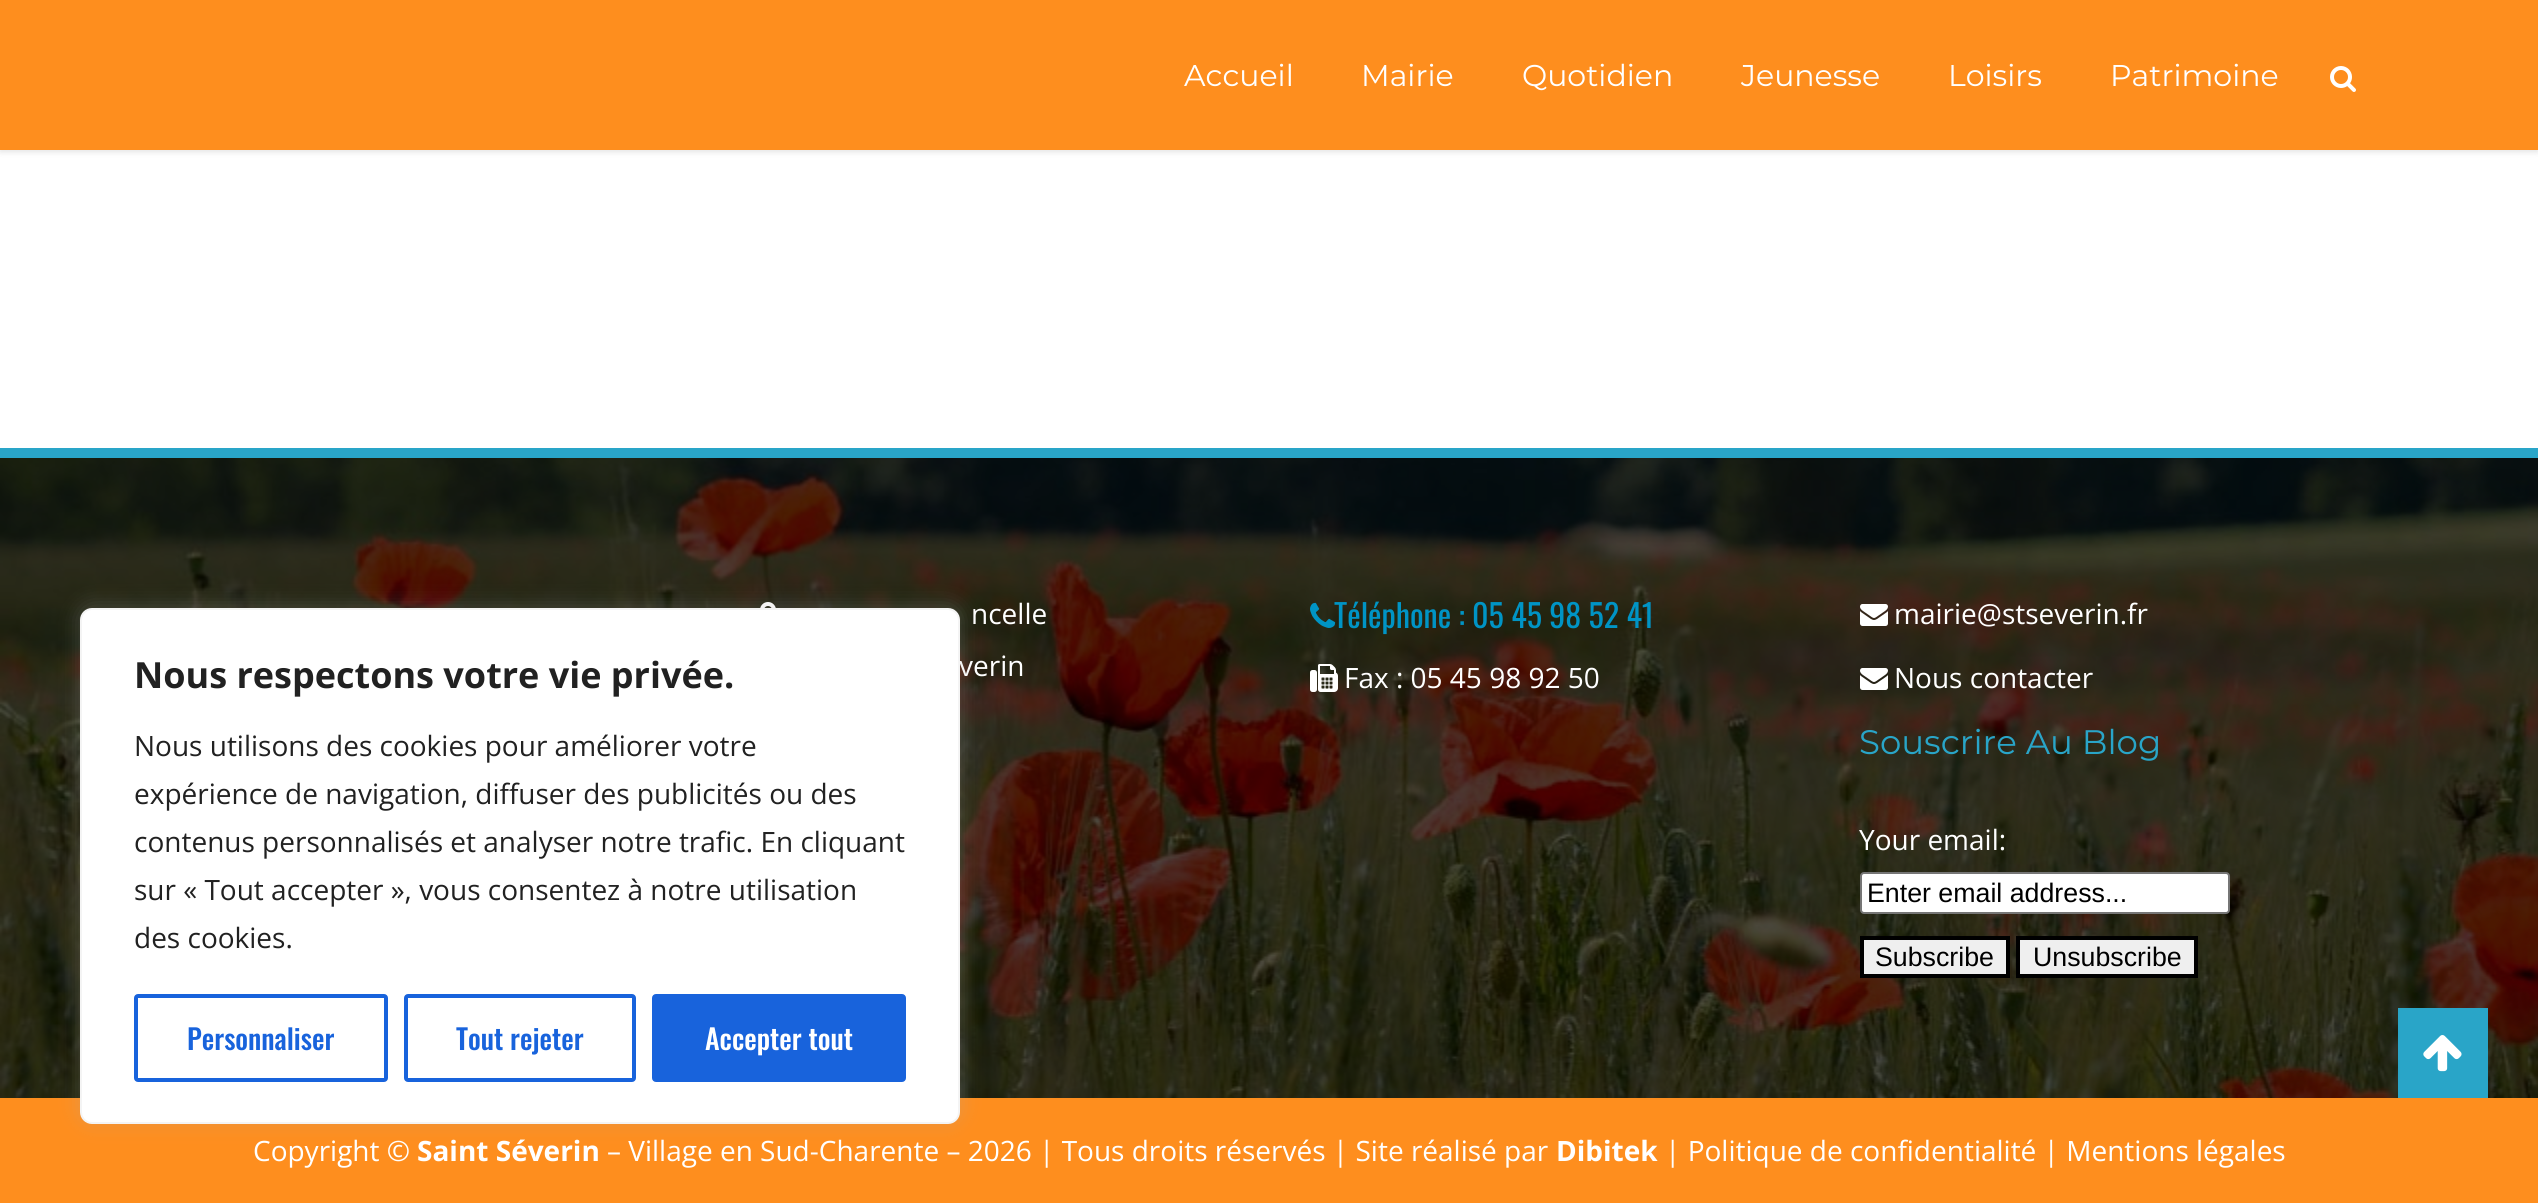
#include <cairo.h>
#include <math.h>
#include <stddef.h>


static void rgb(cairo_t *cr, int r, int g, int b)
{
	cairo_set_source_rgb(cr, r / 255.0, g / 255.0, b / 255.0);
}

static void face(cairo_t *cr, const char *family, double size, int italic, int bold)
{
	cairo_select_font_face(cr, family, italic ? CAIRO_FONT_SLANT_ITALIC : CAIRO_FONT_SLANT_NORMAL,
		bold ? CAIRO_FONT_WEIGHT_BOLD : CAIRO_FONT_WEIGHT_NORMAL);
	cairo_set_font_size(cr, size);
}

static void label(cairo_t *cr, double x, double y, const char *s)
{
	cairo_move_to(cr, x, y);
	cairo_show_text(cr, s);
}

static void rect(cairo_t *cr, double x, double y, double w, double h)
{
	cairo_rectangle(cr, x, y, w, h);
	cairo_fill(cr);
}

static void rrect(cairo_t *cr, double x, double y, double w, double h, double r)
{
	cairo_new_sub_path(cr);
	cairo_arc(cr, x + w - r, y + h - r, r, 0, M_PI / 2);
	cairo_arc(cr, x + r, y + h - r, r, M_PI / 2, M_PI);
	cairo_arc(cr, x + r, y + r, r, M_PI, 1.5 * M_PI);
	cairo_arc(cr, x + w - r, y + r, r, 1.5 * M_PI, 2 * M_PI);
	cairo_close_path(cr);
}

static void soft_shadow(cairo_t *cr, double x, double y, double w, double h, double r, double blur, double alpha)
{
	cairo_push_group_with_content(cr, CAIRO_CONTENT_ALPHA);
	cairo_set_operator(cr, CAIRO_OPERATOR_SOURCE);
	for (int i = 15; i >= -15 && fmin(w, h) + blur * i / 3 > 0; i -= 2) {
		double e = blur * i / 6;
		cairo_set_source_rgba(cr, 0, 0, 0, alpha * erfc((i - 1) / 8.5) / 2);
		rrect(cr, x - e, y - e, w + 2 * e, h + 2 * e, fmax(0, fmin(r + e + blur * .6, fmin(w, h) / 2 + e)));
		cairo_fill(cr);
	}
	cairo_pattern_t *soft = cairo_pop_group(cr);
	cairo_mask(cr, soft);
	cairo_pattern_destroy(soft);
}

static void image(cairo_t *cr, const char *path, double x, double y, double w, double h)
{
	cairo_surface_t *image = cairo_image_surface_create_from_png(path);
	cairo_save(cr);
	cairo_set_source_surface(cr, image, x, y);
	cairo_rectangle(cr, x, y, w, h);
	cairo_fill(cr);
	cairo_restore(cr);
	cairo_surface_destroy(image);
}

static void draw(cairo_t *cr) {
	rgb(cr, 255, 255, 255);
	cairo_paint(cr);
	rgb(cr, 0, 0, 0);
	soft_shadow(cr, 0, 2, 2538, 150, 0, 3, 0.11);
	rgb(cr, 254, 142, 30);
	rect(cr, 0, 0, 2538, 150);
	face(cr, "Montserrat", 30, 0, 0);
	rgb(cr, 255, 255, 255);
	label(cr, 1184, 86, "Accueil");
	label(cr, 1361, 86, "Mairie");
	label(cr, 1522, 86, "Quotidien");
	label(cr, 1741, 86, "Jeunesse");
	label(cr, 1948, 86, "Loisirs");
	label(cr, 2110, 86, "Patrimoine");
	image(cr, "image0.png", 2330, 66, 26, 26);
	image(cr, "image1.png", 0, 458, 2538, 640);
	cairo_set_source_rgba(cr, 0, 0, 0, 0.7);
	rect(cr, 0, 458, 2538, 640);
	rgb(cr, 41, 165, 200);
	rect(cr, 0, 448, 2538, 10);
	image(cr, "image2.png", 760, 602, 16, 6);
	face(cr, "Open Sans", 28, 0, 0);
	rgb(cr, 255, 255, 255);
	label(cr, 971, 624, "ncelle");
	label(cr, 959, 676, "verin");
	image(cr, "image3.png", 1310, 602, 26, 26);
	face(cr, "Oswald", 32, 0, 0);
	rgb(cr, 0, 148, 197);
	label(cr, 1334, 628, "Téléphone : 05 45 98 52 41");
	image(cr, "image4.png", 1310, 664, 28, 28);
	face(cr, "Open Sans", 28, 0, 0);
	rgb(cr, 255, 255, 255);
	label(cr, 1344, 688, "Fax : 05 45 98 92 50");
	image(cr, "image5.png", 1860, 604, 28, 22);
	label(cr, 1894, 624, "mairie@stseverin.fr");
	image(cr, "image6.png", 1860, 668, 28, 22);
	label(cr, 1894, 688, "Nous contacter");
	face(cr, "Montserrat", 34, 0, 0);
	rgb(cr, 41, 165, 200);
	label(cr, 1859, 754, "Souscrire Au Blog");
	face(cr, "Open Sans", 28, 0, 0);
	rgb(cr, 255, 255, 255);
	label(cr, 1859, 850, "Your email:");
	rrect(cr, 1861, 873, 368, 40, 3);
	cairo_fill_preserve(cr);
	rgb(cr, 118, 118, 118);
	cairo_stroke(cr);
	face(cr, "Liberation Sans", 26.75, 0, 0);
	rgb(cr, 0, 0, 0);
	label(cr, 1867, 902, "Enter email address...");
	rgb(cr, 239, 239, 239);
	cairo_rectangle(cr, 1862, 938, 146, 38);
	cairo_fill_preserve(cr);
	rgb(cr, 0, 0, 0);
	cairo_set_line_width(cr, 4);
	cairo_stroke(cr);
	label(cr, 1875, 966, "Subscribe");
	rgb(cr, 239, 239, 239);
	cairo_rectangle(cr, 2018, 938, 178, 38);
	cairo_fill_preserve(cr);
	rgb(cr, 0, 0, 0);
	cairo_stroke(cr);
	label(cr, 2033, 966, "Unsubscribe");
	rgb(cr, 254, 142, 30);
	rect(cr, 0, 1098, 2538, 105);
	face(cr, "Open Sans", 28, 0, 0);
	rgb(cr, 255, 255, 255);
	label(cr, 253, 1161, "Copyright ©");
	face(cr, "Open Sans", 28, 0, 1);
	label(cr, 417, 1161, "Saint Séverin");
	face(cr, "Open Sans", 28, 0, 0);
	label(cr, 607, 1161, "– Village en Sud-Charente – 2026 | Tous droits réservés | Site réalisé par");
	face(cr, "Open Sans", 28, 0, 1);
	label(cr, 1556, 1161, "Dibitek");
	face(cr, "Open Sans", 28, 0, 0);
	label(cr, 1665, 1161, "| Politique de confidentialité | Mentions légales");
	rgb(cr, 41, 165, 200);
	rect(cr, 2398, 1008, 90, 90);
	image(cr, "image7.png", 2423, 1035, 39, 37);
	rgb(cr, 172, 171, 171);
	soft_shadow(cr, 80, 606, 880, 516, 12, 10, 0.3);
	rgb(cr, 255, 255, 255);
	rrect(cr, 81, 609, 878, 514, 11);
	cairo_fill_preserve(cr);
	rgb(cr, 244, 244, 244);
	cairo_set_line_width(cr, 2);
	cairo_stroke(cr);
	face(cr, "Open Sans", 36, 0, 1);
	rgb(cr, 33, 33, 33);
	label(cr, 134, 688, "Nous respectons votre vie privée.");
	face(cr, "Open Sans", 28, 0, 0);
	label(cr, 134, 756, "Nous utilisons des cookies pour améliorer votre");
	label(cr, 134, 804, "expérience de navigation, diffuser des publicités ou des");
	label(cr, 134, 852, "contenus personnalisés et analyser notre trafic. En cliquant");
	label(cr, 134, 900, "sur « Tout accepter », vous consentez à notre utilisation");
	label(cr, 134, 948, "des cookies.");
	rrect(cr, 136, 996, 250, 84, 2);
	rgb(cr, 24, 99, 220);
	cairo_set_line_width(cr, 4);
	cairo_stroke(cr);
	face(cr, "Oswald Medium", 28, 0, 0);
	label(cr, 187, 1050, "Personnaliser");
	rrect(cr, 406, 996, 228, 84, 2);
	cairo_stroke(cr);
	label(cr, 456, 1050, "Tout rejeter");
	rrect(cr, 654, 996, 250, 84, 2);
	cairo_fill_preserve(cr);
	cairo_stroke(cr);
	rgb(cr, 255, 255, 255);
	label(cr, 705, 1050, "Accepter tout");
}

int main(void) {
	cairo_surface_t *surface = cairo_image_surface_create(CAIRO_FORMAT_RGB24, 2538, 1203);
	cairo_t *cr = cairo_create(surface);
	cairo_font_options_t *options = cairo_font_options_create();
	cairo_font_options_set_hint_metrics(options, CAIRO_HINT_METRICS_OFF);
	cairo_font_options_set_hint_style(options, CAIRO_HINT_STYLE_NONE);
	cairo_set_font_options(cr, options);
	cairo_set_miter_limit(cr, 4);
	draw(cr);
	cairo_surface_write_to_png(surface, "render.png");
	cairo_font_options_destroy(options);
	cairo_destroy(cr);
	cairo_surface_destroy(surface);
	return 0;
}
